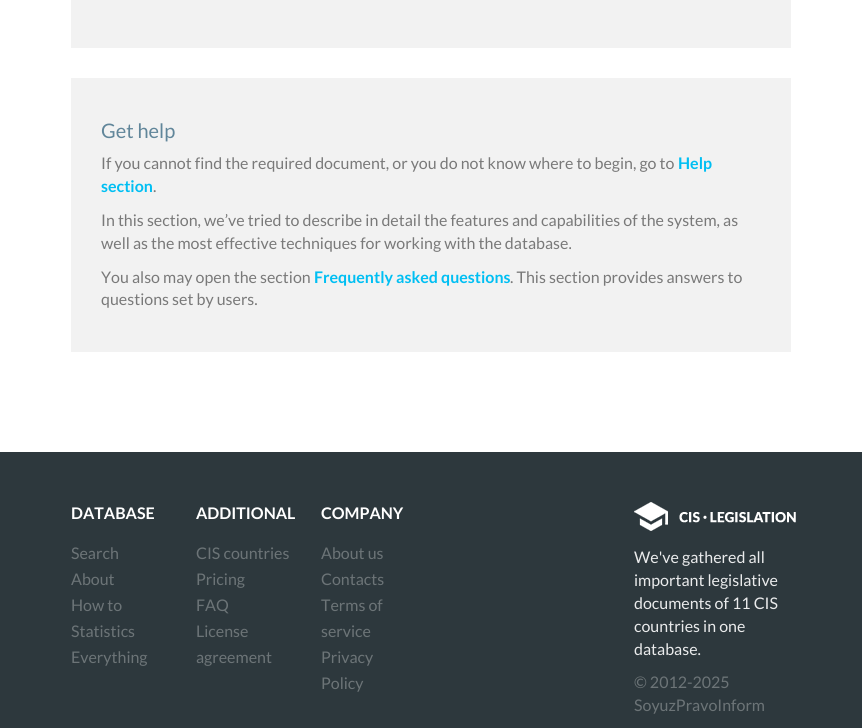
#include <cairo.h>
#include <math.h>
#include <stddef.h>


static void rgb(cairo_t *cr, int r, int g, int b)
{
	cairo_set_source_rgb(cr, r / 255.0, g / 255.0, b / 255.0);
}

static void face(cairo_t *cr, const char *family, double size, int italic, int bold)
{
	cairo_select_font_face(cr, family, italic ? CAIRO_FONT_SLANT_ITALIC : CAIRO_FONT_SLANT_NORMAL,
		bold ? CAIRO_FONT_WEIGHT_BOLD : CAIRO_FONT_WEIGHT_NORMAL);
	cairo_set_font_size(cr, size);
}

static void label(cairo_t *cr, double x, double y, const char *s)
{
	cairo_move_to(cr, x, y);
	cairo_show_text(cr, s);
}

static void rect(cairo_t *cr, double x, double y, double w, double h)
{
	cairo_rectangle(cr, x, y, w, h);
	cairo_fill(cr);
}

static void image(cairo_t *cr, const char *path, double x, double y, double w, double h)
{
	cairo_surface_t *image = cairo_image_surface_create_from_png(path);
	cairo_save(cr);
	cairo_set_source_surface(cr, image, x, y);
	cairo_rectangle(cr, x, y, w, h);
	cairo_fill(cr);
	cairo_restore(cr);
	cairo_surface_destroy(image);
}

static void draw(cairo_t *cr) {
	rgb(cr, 255, 255, 255);
	cairo_paint(cr);
	rgb(cr, 242, 242, 242);
	rect(cr, 71, 0, 720, 48);
	rect(cr, 71, 78, 720, 274);
	face(cr, "Lato", 20, 0, 0);
	rgb(cr, 97, 134, 154);
	label(cr, 101, 138, "Get help");
	face(cr, "Lato", 16, 0, 0);
	rgb(cr, 121, 121, 121);
	label(cr, 101, 169, "If you cannot find the required document, or you do not know where to begin, go to");
	face(cr, "Lato", 16, 0, 1);
	rgb(cr, 0, 191, 243);
	label(cr, 678, 169, "Help");
	label(cr, 101, 192, "section");
	face(cr, "Lato", 16, 0, 0);
	rgb(cr, 121, 121, 121);
	label(cr, 153, 192, ".");
	label(cr, 101, 226, "In this section, we’ve tried to describe in detail the features and capabilities of the system, as");
	label(cr, 101, 249, "well as the most effective techniques for working with the database.");
	label(cr, 101, 283, "You also may open the section");
	face(cr, "Lato", 16, 0, 1);
	rgb(cr, 0, 191, 243);
	label(cr, 314, 283, "Frequently asked questions");
	face(cr, "Lato", 16, 0, 0);
	rgb(cr, 121, 121, 121);
	label(cr, 510, 283, ". This section provides answers to");
	label(cr, 101, 305, "questions set by users.");
	rgb(cr, 45, 56, 61);
	rect(cr, 0, 452, 862, 276);
	face(cr, "Lato", 16, 0, 1);
	rgb(cr, 255, 255, 255);
	label(cr, 71, 519, "DATABASE");
	face(cr, "Lato", 16, 0, 0);
	rgb(cr, 108, 116, 119);
	label(cr, 71, 559, "Search");
	label(cr, 71, 585, "About");
	label(cr, 71, 611, "How to");
	label(cr, 71, 637, "Statistics");
	label(cr, 71, 663, "Everything");
	face(cr, "Lato", 16, 0, 1);
	rgb(cr, 255, 255, 255);
	label(cr, 196, 519, "ADDITIONAL");
	face(cr, "Lato", 16, 0, 0);
	rgb(cr, 108, 116, 119);
	label(cr, 196, 559, "CIS countries");
	label(cr, 196, 585, "Pricing");
	label(cr, 196, 611, "FAQ");
	label(cr, 196, 637, "License");
	label(cr, 196, 663, "agreement");
	face(cr, "Lato", 16, 0, 1);
	rgb(cr, 255, 255, 255);
	label(cr, 321, 519, "COMPANY");
	face(cr, "Lato", 16, 0, 0);
	rgb(cr, 108, 116, 119);
	label(cr, 321, 559, "About us");
	label(cr, 321, 585, "Contacts");
	label(cr, 321, 611, "Terms of");
	label(cr, 321, 637, "service");
	label(cr, 321, 663, "Privacy");
	label(cr, 321, 689, "Policy");
	image(cr, "image0.png", 634, 502, 162, 29);
	rgb(cr, 234, 235, 236);
	label(cr, 634, 563, "We've gathered all");
	label(cr, 634, 586, "important legislative");
	label(cr, 634, 609, "documents of 11 CIS");
	label(cr, 634, 632, "countries in one");
	label(cr, 634, 655, "database.");
	rgb(cr, 108, 116, 119);
	label(cr, 634, 688, "© 2012-2025");
	label(cr, 634, 711, "SoyuzPravoInform");
}

int main(void) {
	cairo_surface_t *surface = cairo_image_surface_create(CAIRO_FORMAT_RGB24, 862, 728);
	cairo_t *cr = cairo_create(surface);
	cairo_font_options_t *options = cairo_font_options_create();
	cairo_font_options_set_hint_metrics(options, CAIRO_HINT_METRICS_OFF);
	cairo_font_options_set_hint_style(options, CAIRO_HINT_STYLE_NONE);
	cairo_set_font_options(cr, options);
	cairo_set_miter_limit(cr, 4);
	draw(cr);
	cairo_surface_write_to_png(surface, "render.png");
	cairo_font_options_destroy(options);
	cairo_destroy(cr);
	cairo_surface_destroy(surface);
	return 0;
}
